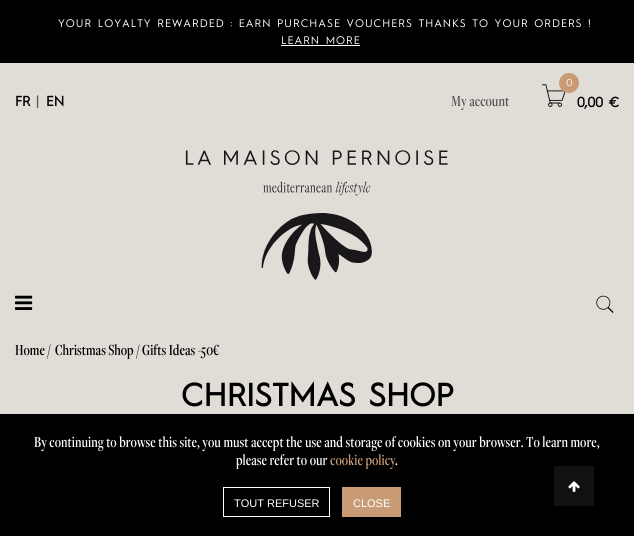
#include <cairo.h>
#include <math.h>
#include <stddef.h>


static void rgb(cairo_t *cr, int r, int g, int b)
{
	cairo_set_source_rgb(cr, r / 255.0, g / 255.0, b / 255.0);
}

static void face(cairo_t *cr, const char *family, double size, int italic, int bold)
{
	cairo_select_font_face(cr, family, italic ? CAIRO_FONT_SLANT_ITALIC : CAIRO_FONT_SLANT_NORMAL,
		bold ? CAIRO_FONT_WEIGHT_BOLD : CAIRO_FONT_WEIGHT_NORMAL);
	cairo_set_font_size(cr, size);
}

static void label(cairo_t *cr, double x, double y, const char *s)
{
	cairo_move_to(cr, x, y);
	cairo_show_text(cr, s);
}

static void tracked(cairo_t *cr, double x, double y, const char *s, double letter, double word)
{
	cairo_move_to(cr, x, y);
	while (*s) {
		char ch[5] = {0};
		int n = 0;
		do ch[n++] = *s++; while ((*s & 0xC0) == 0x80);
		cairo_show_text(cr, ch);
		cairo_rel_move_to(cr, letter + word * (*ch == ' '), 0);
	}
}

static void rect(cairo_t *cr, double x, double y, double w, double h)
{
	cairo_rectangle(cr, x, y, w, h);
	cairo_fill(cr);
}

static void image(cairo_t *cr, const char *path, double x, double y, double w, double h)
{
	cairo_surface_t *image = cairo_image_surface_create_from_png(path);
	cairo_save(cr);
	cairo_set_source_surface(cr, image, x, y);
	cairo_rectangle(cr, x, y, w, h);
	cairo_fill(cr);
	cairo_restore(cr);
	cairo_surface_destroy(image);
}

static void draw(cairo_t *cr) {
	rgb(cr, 224, 220, 214);
	cairo_paint(cr);
	rgb(cr, 0, 0, 0);
	rect(cr, 0, 0, 634, 63);
	face(cr, "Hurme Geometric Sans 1", 11, 0, 0);
	rgb(cr, 255, 255, 255);
	tracked(cr, 58, 27, "YOUR LOYALTY REWARDED : EARN PURCHASE VOUCHERS THANKS TO YOUR ORDERS !", 1, 0);
	tracked(cr, 281, 44, "LEARN MORE", 1, 0);
	rect(cr, 281, 45, 79, 1);
	face(cr, "Hurme Geometric Sans 1", 14, 0, 1);
	rgb(cr, 0, 0, 0);
	label(cr, 15, 106, "FR");
	face(cr, "Oswald", 13, 0, 0);
	rgb(cr, 85, 85, 85);
	tracked(cr, 36, 106, "|", 2, 0);
	face(cr, "Hurme Geometric Sans 1", 14, 0, 1);
	rgb(cr, 0, 0, 0);
	label(cr, 46, 106, "EN");
	face(cr, "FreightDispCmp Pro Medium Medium", 16, 0, 0);
	rgb(cr, 85, 85, 85);
	label(cr, 451, 106, "My account");
	image(cr, "image0.png", 542, 84, 24, 23);
	rgb(cr, 200, 155, 118);
	cairo_arc(cr, 569, 83, 10, 0, 2 * M_PI);
	cairo_fill(cr);
	face(cr, "Montserrat Thin", 10, 0, 0);
	rgb(cr, 255, 255, 255);
	label(cr, 566, 86, "0");
	face(cr, "Hurme Geometric Sans 1", 14, 0, 1);
	rgb(cr, 0, 0, 0);
	label(cr, 577, 107, "0,00 €");
	image(cr, "image1.png", 185, 150, 263, 130);
	image(cr, "image2.png", 15, 295, 18, 15);
	image(cr, "image3.png", 596, 295, 18, 18);
	face(cr, "FreightDispCmp Pro Medium Medium", 16, 0, 0);
	label(cr, 15, 355, "Home");
	label(cr, 47, 355, "/");
	label(cr, 55, 355, "Christmas Shop");
	label(cr, 136, 355, "/");
	label(cr, 142, 355, "Gifts Ideas -50€");
	face(cr, "Hurme Geometric Sans 1", 32, 0, 1);
	label(cr, 181, 406, "CHRISTMAS SHOP");
	rect(cr, 0, 414, 634, 122);
	rgb(cr, 17, 17, 17);
	rect(cr, 554, 466, 40, 40);
	image(cr, "image4.png", 568, 481, 12, 11);
	face(cr, "FreightDispCmp Pro Medium Medium", 16, 0, 0);
	rgb(cr, 255, 255, 255);
	label(cr, 34, 447, "By continuing to browse this site, you must accept the use and storage of cookies on your browser. To learn more,");
	label(cr, 236, 465, "please refer to our");
	rgb(cr, 200, 155, 118);
	label(cr, 330, 465, "cookie policy");
	rgb(cr, 255, 255, 255);
	label(cr, 395, 465, ".");
	cairo_rectangle(cr, 223.5, 487.5, 106, 29);
	cairo_set_line_width(cr, 1);
	cairo_stroke(cr);
	face(cr, "Liberation Sans", 11, 0, 0);
	label(cr, 234, 507, "TOUT REFUSER");
	rgb(cr, 200, 155, 118);
	rect(cr, 342, 487, 59, 30);
	rgb(cr, 255, 255, 255);
	label(cr, 353, 507, "CLOSE");
}

int main(void) {
	cairo_surface_t *surface = cairo_image_surface_create(CAIRO_FORMAT_RGB24, 634, 536);
	cairo_t *cr = cairo_create(surface);
	cairo_font_options_t *options = cairo_font_options_create();
	cairo_font_options_set_hint_metrics(options, CAIRO_HINT_METRICS_OFF);
	cairo_font_options_set_hint_style(options, CAIRO_HINT_STYLE_NONE);
	cairo_set_font_options(cr, options);
	cairo_set_miter_limit(cr, 4);
	draw(cr);
	cairo_surface_write_to_png(surface, "render.png");
	cairo_font_options_destroy(options);
	cairo_destroy(cr);
	cairo_surface_destroy(surface);
	return 0;
}
